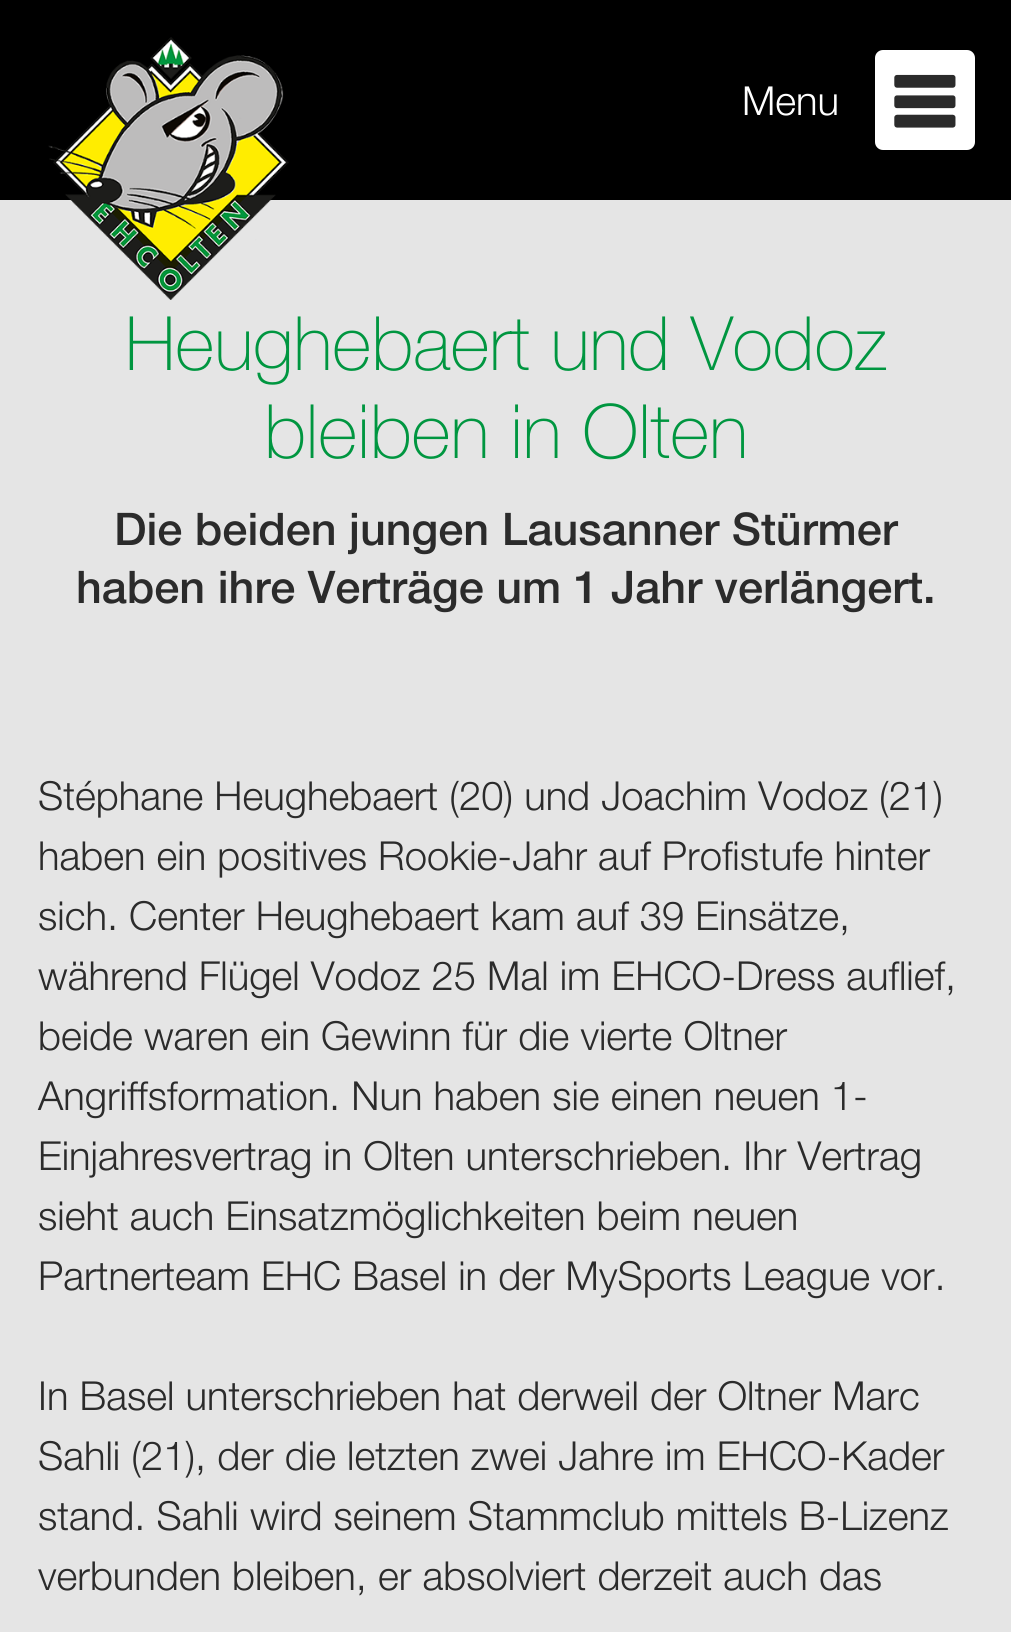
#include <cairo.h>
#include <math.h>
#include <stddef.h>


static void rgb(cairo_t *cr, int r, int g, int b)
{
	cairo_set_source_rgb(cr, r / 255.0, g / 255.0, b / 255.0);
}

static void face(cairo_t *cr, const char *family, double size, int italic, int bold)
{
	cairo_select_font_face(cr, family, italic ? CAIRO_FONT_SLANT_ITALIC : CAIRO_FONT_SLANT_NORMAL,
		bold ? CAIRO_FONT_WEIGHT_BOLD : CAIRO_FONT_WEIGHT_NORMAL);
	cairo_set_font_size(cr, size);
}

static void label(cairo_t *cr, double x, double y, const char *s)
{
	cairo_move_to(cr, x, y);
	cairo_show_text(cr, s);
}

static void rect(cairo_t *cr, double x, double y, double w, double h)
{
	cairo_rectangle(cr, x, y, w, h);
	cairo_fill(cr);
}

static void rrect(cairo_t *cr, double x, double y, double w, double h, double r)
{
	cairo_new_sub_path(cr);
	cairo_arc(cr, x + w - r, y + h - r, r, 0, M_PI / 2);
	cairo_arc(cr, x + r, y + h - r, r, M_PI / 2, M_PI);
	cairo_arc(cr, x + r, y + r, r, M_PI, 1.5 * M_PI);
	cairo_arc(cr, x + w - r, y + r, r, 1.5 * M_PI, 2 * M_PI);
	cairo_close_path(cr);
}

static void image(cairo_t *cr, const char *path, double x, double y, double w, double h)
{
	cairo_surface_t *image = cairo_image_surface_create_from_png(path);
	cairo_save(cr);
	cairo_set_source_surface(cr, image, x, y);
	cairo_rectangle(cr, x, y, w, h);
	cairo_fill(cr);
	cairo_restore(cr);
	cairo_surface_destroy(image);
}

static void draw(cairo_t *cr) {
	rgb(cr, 229, 229, 229);
	cairo_paint(cr);
	rgb(cr, 0, 0, 0);
	rect(cr, 0, 0, 1011, 200);
	image(cr, "image0.png", 48, 37, 241, 263);
	face(cr, "Helvetica Neue Light", 40, 0, 0);
	rgb(cr, 255, 255, 255);
	label(cr, 742, 115, "Menu");
	rrect(cr, 875, 50, 100, 100, 8);
	cairo_fill(cr);
	image(cr, "image1.png", 894, 74, 62, 54);
	face(cr, "Helvetica Neue Thin", 75, 0, 0);
	rgb(cr, 0, 150, 64);
	label(cr, 125, 370, "Heughebaert und Vodoz");
	label(cr, 264, 458, "bleiben in Olten");
	face(cr, "Helvetica Neue Medium", 45, 0, 0);
	rgb(cr, 43, 43, 43);
	label(cr, 114, 545, "Die beiden jungen Lausanner Stürmer");
	label(cr, 76, 603, "haben ihre Verträge um 1 Jahr verlängert.");
	face(cr, "Helvetica Neue Light", 40, 0, 0);
	label(cr, 38, 810, "Stéphane Heughebaert (20) und Joachim Vodoz (21)");
	label(cr, 38, 870, "haben ein positives Rookie-Jahr auf Profistufe hinter");
	label(cr, 38, 930, "sich. Center Heughebaert kam auf 39 Einsätze,");
	label(cr, 38, 990, "während Flügel Vodoz 25 Mal im EHCO-Dress auflief,");
	label(cr, 38, 1050, "beide waren ein Gewinn für die vierte Oltner");
	label(cr, 38, 1110, "Angriffsformation. Nun haben sie einen neuen 1-");
	label(cr, 38, 1170, "Einjahresvertrag in Olten unterschrieben. Ihr Vertrag");
	label(cr, 38, 1230, "sieht auch Einsatzmöglichkeiten beim neuen");
	label(cr, 38, 1290, "Partnerteam EHC Basel in der MySports League vor.");
	label(cr, 38, 1410, "In Basel unterschrieben hat derweil der Oltner Marc");
	label(cr, 38, 1470, "Sahli (21), der die letzten zwei Jahre im EHCO-Kader");
	label(cr, 38, 1530, "stand. Sahli wird seinem Stammclub mittels B-Lizenz");
	label(cr, 38, 1590, "verbunden bleiben, er absolviert derzeit auch das");
}

int main(void) {
	cairo_surface_t *surface = cairo_image_surface_create(CAIRO_FORMAT_RGB24, 1011, 1632);
	cairo_t *cr = cairo_create(surface);
	cairo_font_options_t *options = cairo_font_options_create();
	cairo_font_options_set_hint_metrics(options, CAIRO_HINT_METRICS_OFF);
	cairo_font_options_set_hint_style(options, CAIRO_HINT_STYLE_NONE);
	cairo_set_font_options(cr, options);
	cairo_set_miter_limit(cr, 4);
	draw(cr);
	cairo_surface_write_to_png(surface, "render.png");
	cairo_font_options_destroy(options);
	cairo_destroy(cr);
	cairo_surface_destroy(surface);
	return 0;
}
